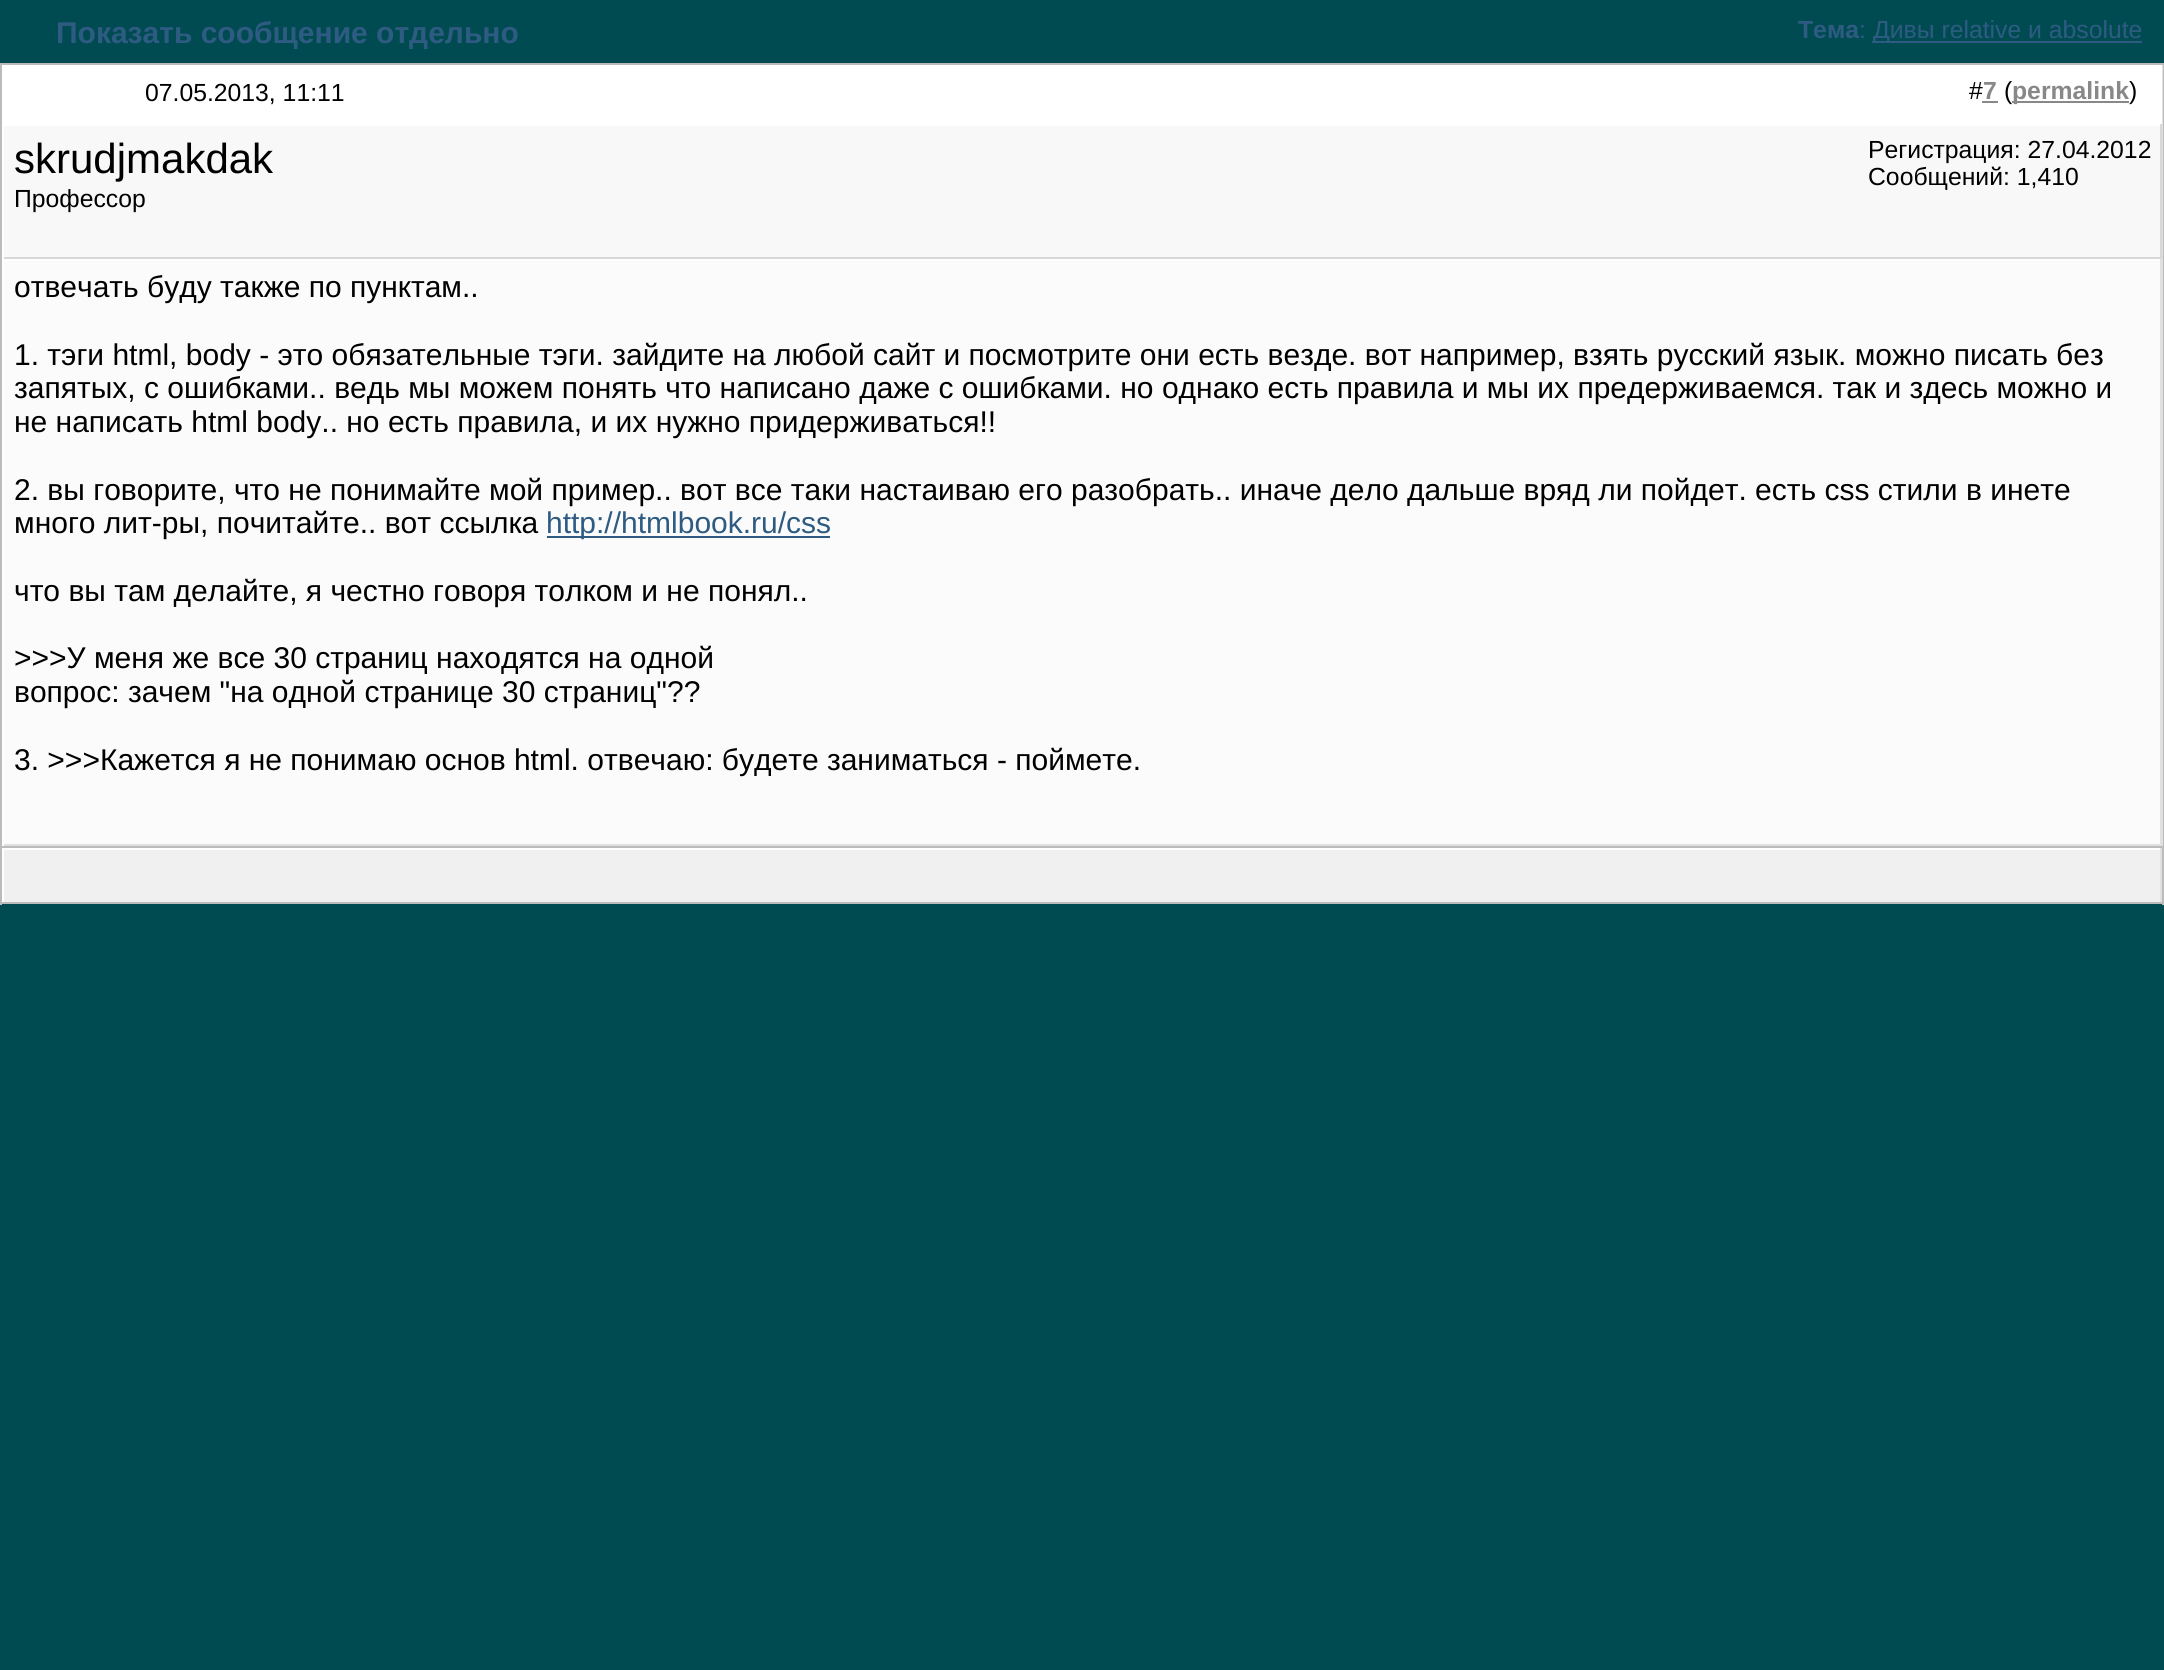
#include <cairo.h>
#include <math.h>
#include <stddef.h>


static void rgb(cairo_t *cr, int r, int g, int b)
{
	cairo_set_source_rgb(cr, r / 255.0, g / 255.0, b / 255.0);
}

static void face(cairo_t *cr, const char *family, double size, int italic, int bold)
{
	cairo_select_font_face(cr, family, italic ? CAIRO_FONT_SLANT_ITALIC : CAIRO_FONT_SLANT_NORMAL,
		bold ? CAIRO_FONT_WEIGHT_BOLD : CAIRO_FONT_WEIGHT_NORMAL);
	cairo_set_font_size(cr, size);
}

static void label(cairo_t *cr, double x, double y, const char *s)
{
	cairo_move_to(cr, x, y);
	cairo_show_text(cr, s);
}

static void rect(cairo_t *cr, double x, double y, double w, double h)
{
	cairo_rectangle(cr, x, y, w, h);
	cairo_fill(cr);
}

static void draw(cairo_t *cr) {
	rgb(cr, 0, 75, 82);
	cairo_paint(cr);
	face(cr, "Liberation Sans", 30, 0, 1);
	rgb(cr, 46, 91, 130);
	label(cr, 56, 43, "Показать сообщение отдельно");
	face(cr, "Liberation Sans", 24.75, 0, 1);
	label(cr, 1798, 38, "Тема");
	face(cr, "Liberation Sans", 24.75, 0, 0);
	label(cr, 1859, 38, ":");
	rect(cr, 1872, 41, 270, 2);
	label(cr, 1873, 38, "Дивы relative и absolute");
	rgb(cr, 225, 225, 225);
	rect(cr, 2162, 65, 1, 781);
	cairo_rectangle(cr, 1, 64, 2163, 783);
	rgb(cr, 187, 187, 187);
	cairo_stroke(cr);
	rgb(cr, 255, 255, 255);
	rect(cr, 2, 65, 2160, 61);
	rgb(cr, 0, 0, 0);
	label(cr, 145, 101, "07.05.2013, 11:11");
	label(cr, 1969, 99, "#");
	face(cr, "Liberation Sans", 24.75, 0, 1);
	rgb(cr, 136, 136, 136);
	label(cr, 1983, 99, "7");
	rect(cr, 1982, 101, 16, 2);
	face(cr, "Liberation Sans", 24.75, 0, 0);
	rgb(cr, 0, 0, 0);
	label(cr, 2004, 99, "(");
	rgb(cr, 136, 136, 136);
	rect(cr, 2012, 101, 117, 2);
	face(cr, "Liberation Sans", 24.75, 0, 1);
	label(cr, 2012, 99, "permalink");
	face(cr, "Liberation Sans", 24.75, 0, 0);
	rgb(cr, 0, 0, 0);
	label(cr, 2129, 99, ")");
	rgb(cr, 248, 248, 248);
	rect(cr, 4, 126, 2156, 131);
	rgb(cr, 215, 215, 215);
	rect(cr, 2160, 124, 2, 135);
	rect(cr, 2, 257, 2160, 2);
	rgb(cr, 255, 255, 255);
	rect(cr, 2, 124, 2, 135);
	face(cr, "Liberation Sans", 42, 0, 0);
	rgb(cr, 0, 0, 0);
	label(cr, 14, 173, "skrudjmakdak");
	face(cr, "Liberation Sans", 24.75, 0, 0);
	label(cr, 14, 207, "Профессор");
	label(cr, 1868, 158, "Регистрация: 27.04.2012");
	label(cr, 1868, 185, "Сообщений: 1,410");
	rgb(cr, 251, 251, 251);
	rect(cr, 4, 261, 2156, 583);
	rgb(cr, 255, 255, 255);
	rect(cr, 2, 259, 2160, 2);
	rgb(cr, 224, 224, 224);
	rect(cr, 2160, 259, 2, 587);
	rect(cr, 2, 844, 2160, 2);
	rgb(cr, 255, 255, 255);
	rect(cr, 2, 259, 2, 587);
	face(cr, "Liberation Sans", 30, 0, 0);
	rgb(cr, 0, 0, 0);
	label(cr, 14, 297, "отвечать буду также по пунктам..");
	label(cr, 14, 365, "1. тэги html, body - это обязательные тэги. зайдите на любой сайт и посмотрите они есть везде. вот например, взять русский язык. можно писать без");
	label(cr, 14, 398, "запятых, с ошибками.. ведь мы можем понять что написано даже с ошибками. но однако есть правила и мы их предерживаемся. так и здесь можно и");
	label(cr, 14, 432, "не написать html body.. но есть правила, и их нужно придерживаться!!");
	label(cr, 14, 500, "2. вы говорите, что не понимайте мой пример.. вот все таки настаиваю его разобрать.. иначе дело дальше вряд ли пойдет. есть css стили в инете");
	label(cr, 14, 533, "много лит-ры, почитайте.. вот ссылка");
	rgb(cr, 46, 91, 130);
	rect(cr, 547, 536, 283, 2);
	label(cr, 546, 533, "http://htmlbook.ru/css");
	rgb(cr, 0, 0, 0);
	label(cr, 14, 601, "что вы там делайте, я честно говоря толком и не понял..");
	label(cr, 14, 668, ">>>У меня же все 30 страниц находятся на одной");
	label(cr, 14, 702, "вопрос: зачем \"на одной странице 30 страниц\"?\077");
	label(cr, 14, 770, "3. >>>Кажется я не понимаю основ html. отвечаю: будете заниматься - поймете.");
	rgb(cr, 187, 187, 187);
	rect(cr, 2162, 848, 2, 57);
	rect(cr, 0, 902, 2164, 2);
	rect(cr, 0, 848, 2, 57);
	rgb(cr, 240, 240, 240);
	rect(cr, 4, 850, 2156, 52);
	rgb(cr, 255, 255, 255);
	rect(cr, 2, 848, 2160, 2);
	rgb(cr, 224, 224, 224);
	rect(cr, 2160, 848, 2, 54);
	rgb(cr, 255, 255, 255);
	rect(cr, 2, 848, 2, 54);
}

int main(void) {
	cairo_surface_t *surface = cairo_image_surface_create(CAIRO_FORMAT_RGB24, 2164, 1670);
	cairo_t *cr = cairo_create(surface);
	cairo_font_options_t *options = cairo_font_options_create();
	cairo_font_options_set_hint_metrics(options, CAIRO_HINT_METRICS_OFF);
	cairo_font_options_set_hint_style(options, CAIRO_HINT_STYLE_NONE);
	cairo_set_font_options(cr, options);
	cairo_set_miter_limit(cr, 4);
	draw(cr);
	cairo_surface_write_to_png(surface, "render.png");
	cairo_font_options_destroy(options);
	cairo_destroy(cr);
	cairo_surface_destroy(surface);
	return 0;
}
